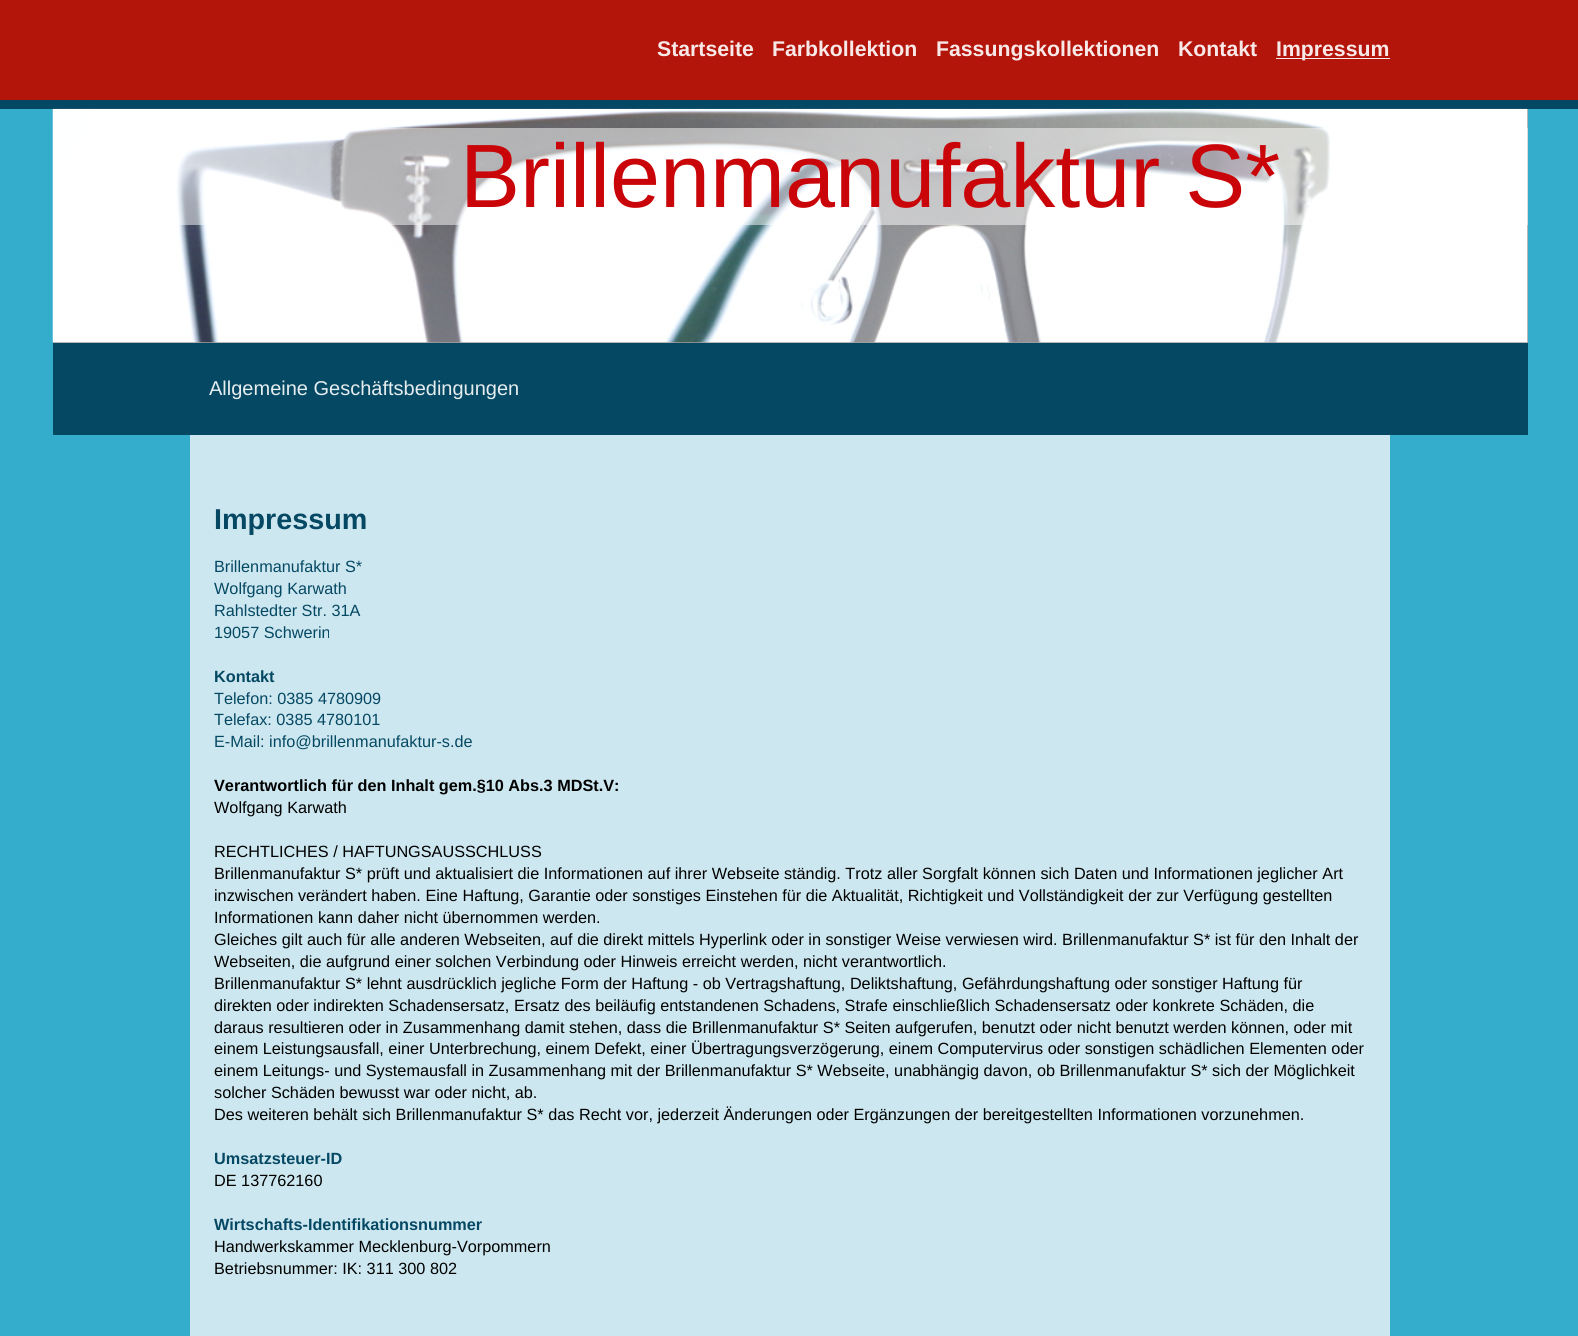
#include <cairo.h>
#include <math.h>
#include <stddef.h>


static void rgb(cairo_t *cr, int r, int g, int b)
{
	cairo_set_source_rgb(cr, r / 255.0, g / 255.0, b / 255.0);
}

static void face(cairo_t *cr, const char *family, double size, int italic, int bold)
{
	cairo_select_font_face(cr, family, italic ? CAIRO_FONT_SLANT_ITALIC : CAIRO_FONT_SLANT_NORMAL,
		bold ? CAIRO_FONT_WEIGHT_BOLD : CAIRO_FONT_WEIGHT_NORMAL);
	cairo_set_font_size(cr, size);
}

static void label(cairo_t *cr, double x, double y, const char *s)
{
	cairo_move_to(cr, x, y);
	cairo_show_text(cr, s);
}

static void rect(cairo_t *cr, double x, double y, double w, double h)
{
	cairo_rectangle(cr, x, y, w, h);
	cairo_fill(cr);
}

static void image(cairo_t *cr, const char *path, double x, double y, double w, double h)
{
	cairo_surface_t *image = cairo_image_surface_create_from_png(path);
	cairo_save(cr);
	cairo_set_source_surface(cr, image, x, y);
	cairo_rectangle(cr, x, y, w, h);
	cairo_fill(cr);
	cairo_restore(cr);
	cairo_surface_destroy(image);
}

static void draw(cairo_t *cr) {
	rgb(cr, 52, 173, 204);
	cairo_paint(cr);
	rgb(cr, 180, 21, 11);
	rect(cr, 0, 0, 1578, 100);
	rgb(cr, 5, 72, 99);
	rect(cr, 0, 100, 1578, 9);
	face(cr, "Liberation Sans", 21.25, 0, 1);
	rgb(cr, 248, 232, 231);
	label(cr, 657, 56, "Startseite");
	label(cr, 772, 56, "Farbkollektion");
	label(cr, 936, 56, "Fassungskollektionen");
	label(cr, 1178, 56, "Kontakt");
	rect(cr, 1276, 58, 114, 1);
	label(cr, 1276, 56, "Impressum");
	rgb(cr, 160, 160, 160);
	rect(cr, 53, 109, 1475, 234);
	image(cr, "image0.png", 52, 108, 1476, 235);
	cairo_set_source_rgba(cr, 1, 1, 1, 0.5);
	rect(cr, 176, 128, 1352, 97);
	face(cr, "Liberation Sans", 90, 0, 0);
	rgb(cr, 201, 5, 9);
	label(cr, 460, 207, "Brillenmanufaktur S*");
	rgb(cr, 5, 72, 99);
	rect(cr, 53, 343, 1475, 92);
	face(cr, "Liberation Sans", 20, 0, 0);
	rgb(cr, 230, 237, 239);
	label(cr, 209, 395, "Allgemeine Geschäftsbedingungen");
	rgb(cr, 204, 231, 239);
	rect(cr, 190, 435, 1200, 901);
	face(cr, "Liberation Sans", 28.75, 0, 1);
	rgb(cr, 5, 72, 99);
	label(cr, 214, 529, "Impressum");
	face(cr, "Liberation Sans", 16.25, 0, 0);
	label(cr, 214, 572, "Brillenmanufaktur S*");
	label(cr, 214, 594, "Wolfgang Karwath");
	label(cr, 214, 616, "Rahlstedter Str. 31A");
	label(cr, 214, 638, "19057 Schwerin");
	face(cr, "Liberation Sans", 16.25, 0, 1);
	label(cr, 214, 682, "Kontakt");
	face(cr, "Liberation Sans", 16.25, 0, 0);
	label(cr, 214, 704, "Telefon: 0385 4780909");
	label(cr, 214, 725, "Telefax: 0385 4780101");
	label(cr, 214, 747, "E-Mail: info@brillenmanufaktur-s.de");
	face(cr, "Liberation Sans", 16.25, 0, 1);
	rgb(cr, 0, 0, 0);
	label(cr, 214, 791, "Verantwortlich für den Inhalt gem.§10 Abs.3 MDSt.V:");
	face(cr, "Liberation Sans", 16.25, 0, 0);
	label(cr, 214, 813, "Wolfgang Karwath");
	label(cr, 214, 857, "RECHTLICHES / HAFTUNGSAUSSCHLUSS");
	label(cr, 214, 879, "Brillenmanufaktur S* prüft und aktualisiert die Informationen auf ihrer Webseite ständig. Trotz aller Sorgfalt können sich Daten und Informationen jeglicher Art");
	label(cr, 214, 901, "inzwischen verändert haben. Eine Haftung, Garantie oder sonstiges Einstehen für die Aktualität, Richtigkeit und Vollständigkeit der zur Verfügung gestellten");
	label(cr, 214, 923, "Informationen kann daher nicht übernommen werden.");
	label(cr, 214, 945, "Gleiches gilt auch für alle anderen Webseiten, auf die direkt mittels Hyperlink oder in sonstiger Weise verwiesen wird. Brillenmanufaktur S* ist für den Inhalt der");
	label(cr, 214, 967, "Webseiten, die aufgrund einer solchen Verbindung oder Hinweis erreicht werden, nicht verantwortlich.");
	label(cr, 214, 989, "Brillenmanufaktur S* lehnt ausdrücklich jegliche Form der Haftung - ob Vertragshaftung, Deliktshaftung, Gefährdungshaftung oder sonstiger Haftung für");
	label(cr, 214, 1011, "direkten oder indirekten Schadensersatz, Ersatz des beiläufig entstandenen Schadens, Strafe einschließlich Schadensersatz oder konkrete Schäden, die");
	label(cr, 214, 1033, "daraus resultieren oder in Zusammenhang damit stehen, dass die Brillenmanufaktur S* Seiten aufgerufen, benutzt oder nicht benutzt werden können, oder mit");
	label(cr, 214, 1054, "einem Leistungsausfall, einer Unterbrechung, einem Defekt, einer Übertragungsverzögerung, einem Computervirus oder sonstigen schädlichen Elementen oder");
	label(cr, 214, 1076, "einem Leitungs- und Systemausfall in Zusammenhang mit der Brillenmanufaktur S* Webseite, unabhängig davon, ob Brillenmanufaktur S* sich der Möglichkeit");
	label(cr, 214, 1098, "solcher Schäden bewusst war oder nicht, ab.");
	label(cr, 214, 1120, "Des weiteren behält sich Brillenmanufaktur S* das Recht vor, jederzeit Änderungen oder Ergänzungen der bereitgestellten Informationen vorzunehmen.");
	face(cr, "Liberation Sans", 16.25, 0, 1);
	rgb(cr, 5, 72, 99);
	label(cr, 214, 1164, "Umsatzsteuer-ID");
	face(cr, "Liberation Sans", 16.25, 0, 0);
	rgb(cr, 0, 0, 0);
	label(cr, 214, 1186, "DE 137762160");
	face(cr, "Liberation Sans", 16.25, 0, 1);
	rgb(cr, 5, 72, 99);
	label(cr, 214, 1230, "Wirtschafts-Identifikationsnummer");
	face(cr, "Liberation Sans", 16.25, 0, 0);
	rgb(cr, 0, 0, 0);
	label(cr, 214, 1252, "Handwerkskammer Mecklenburg-Vorpommern");
	label(cr, 214, 1274, "Betriebsnummer: IK: 311 300 802");
}

int main(void) {
	cairo_surface_t *surface = cairo_image_surface_create(CAIRO_FORMAT_RGB24, 1578, 1336);
	cairo_t *cr = cairo_create(surface);
	cairo_font_options_t *options = cairo_font_options_create();
	cairo_font_options_set_hint_metrics(options, CAIRO_HINT_METRICS_OFF);
	cairo_font_options_set_hint_style(options, CAIRO_HINT_STYLE_NONE);
	cairo_set_font_options(cr, options);
	cairo_set_miter_limit(cr, 4);
	draw(cr);
	cairo_surface_write_to_png(surface, "render.png");
	cairo_font_options_destroy(options);
	cairo_destroy(cr);
	cairo_surface_destroy(surface);
	return 0;
}
